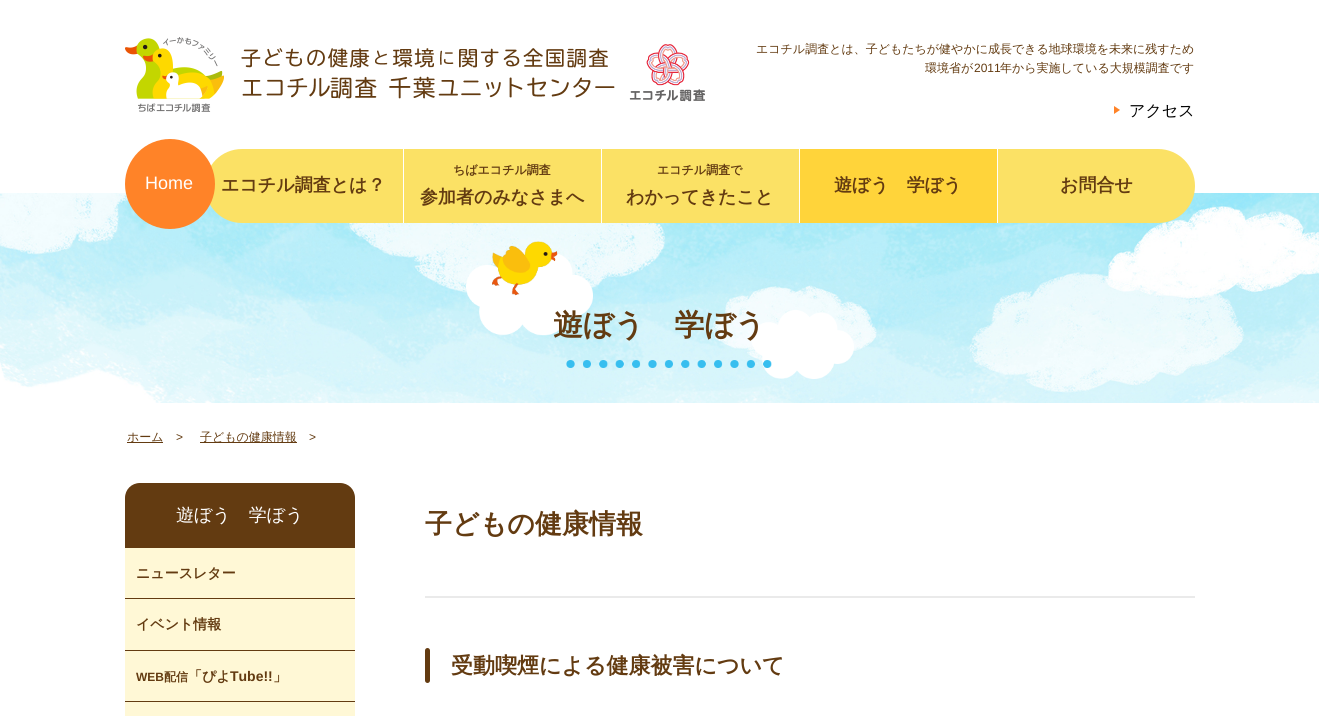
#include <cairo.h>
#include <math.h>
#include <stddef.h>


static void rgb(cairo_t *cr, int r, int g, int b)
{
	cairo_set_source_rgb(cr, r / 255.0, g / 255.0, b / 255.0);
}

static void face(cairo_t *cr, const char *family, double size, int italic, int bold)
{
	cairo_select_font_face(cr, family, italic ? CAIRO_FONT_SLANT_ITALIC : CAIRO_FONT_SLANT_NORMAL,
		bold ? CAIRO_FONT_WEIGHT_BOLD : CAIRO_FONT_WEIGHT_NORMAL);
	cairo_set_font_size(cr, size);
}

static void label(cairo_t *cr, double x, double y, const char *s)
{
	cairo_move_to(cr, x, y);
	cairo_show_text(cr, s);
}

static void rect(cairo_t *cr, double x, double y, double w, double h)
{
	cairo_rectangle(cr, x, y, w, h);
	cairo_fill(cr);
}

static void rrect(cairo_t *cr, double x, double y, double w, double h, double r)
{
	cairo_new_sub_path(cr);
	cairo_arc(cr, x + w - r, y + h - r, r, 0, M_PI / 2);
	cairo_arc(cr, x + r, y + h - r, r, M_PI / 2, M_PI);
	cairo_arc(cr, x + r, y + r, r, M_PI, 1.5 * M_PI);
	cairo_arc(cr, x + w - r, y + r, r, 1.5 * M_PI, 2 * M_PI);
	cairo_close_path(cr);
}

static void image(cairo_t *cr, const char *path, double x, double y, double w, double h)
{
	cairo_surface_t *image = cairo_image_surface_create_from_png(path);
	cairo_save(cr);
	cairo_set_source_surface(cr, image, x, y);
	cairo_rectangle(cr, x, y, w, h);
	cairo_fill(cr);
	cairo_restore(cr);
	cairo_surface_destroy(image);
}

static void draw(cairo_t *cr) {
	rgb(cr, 255, 255, 255);
	cairo_paint(cr);
	image(cr, "image0.png", 125, 37, 490, 75);
	image(cr, "image1.png", 629, 44, 76, 58);
	face(cr, "WenQuanYi Zen Hei Medium", 12, 0, 0);
	rgb(cr, 99, 59, 17);
	label(cr, 756, 53, "エコチル調査とは、子どもたちが健やかに成長できる地球環境を未来に残すため");
	label(cr, 925, 72, "環境省が");
	face(cr, "Liberation Sans", 12, 0, 0);
	label(cr, 974, 72, "2011");
	face(cr, "WenQuanYi Zen Hei Medium", 12, 0, 0);
	label(cr, 1000, 72, "年から実施している大規模調査です");
	rgb(cr, 255, 131, 40);
	cairo_new_path(cr);
	cairo_move_to(cr, 1114, 114);
	cairo_line_to(cr, 1114, 106);
	cairo_line_to(cr, 1120, 110);
	cairo_close_path(cr);
	cairo_fill(cr);
	face(cr, "WenQuanYi Zen Hei Medium", 16, 0, 0);
	rgb(cr, 0, 0, 0);
	label(cr, 1129, 116, "アクセス");
	image(cr, "image2.png", 0, 193, 1319, 210);
	rgb(cr, 251, 225, 101);
	cairo_new_path(cr);
	cairo_move_to(cr, 242, 149);
	cairo_line_to(cr, 403, 149);
	cairo_line_to(cr, 403, 223);
	cairo_line_to(cr, 242, 223);
	cairo_curve_to(cr, 221.5, 223, 205, 206.5, 205, 186);
	cairo_curve_to(cr, 205, 165.5, 221.5, 149, 242, 149);
	cairo_close_path(cr);
	cairo_fill(cr);
	rgb(cr, 255, 131, 40);
	cairo_arc(cr, 170, 184, 45, 0, 2 * M_PI);
	cairo_fill(cr);
	face(cr, "Liberation Sans", 18, 0, 0);
	rgb(cr, 255, 255, 255);
	label(cr, 145, 189, "Home");
	face(cr, "WenQuanYi Zen Hei", 18, 0, 1);
	rgb(cr, 99, 59, 17);
	label(cr, 221, 191, "エコチル調査とは？");
	rgb(cr, 255, 255, 255);
	rect(cr, 403, 193, 1, 30);
	rgb(cr, 251, 225, 101);
	rect(cr, 404, 149, 197, 74);
	face(cr, "WenQuanYi Zen Hei", 12, 0, 1);
	rgb(cr, 99, 59, 17);
	label(cr, 453, 174, "ちばエコチル調査");
	face(cr, "WenQuanYi Zen Hei", 18, 0, 1);
	label(cr, 420, 203, "参加者のみなさまへ");
	rgb(cr, 255, 255, 255);
	rect(cr, 601, 193, 1, 30);
	rgb(cr, 251, 225, 101);
	rect(cr, 602, 149, 197, 74);
	face(cr, "WenQuanYi Zen Hei", 12, 0, 1);
	rgb(cr, 99, 59, 17);
	label(cr, 657, 174, "エコチル調査で");
	face(cr, "WenQuanYi Zen Hei", 18, 0, 1);
	label(cr, 626, 203, "わかってきたこと");
	rgb(cr, 255, 255, 255);
	rect(cr, 799, 193, 1, 30);
	rgb(cr, 255, 212, 58);
	rect(cr, 800, 149, 197, 74);
	rgb(cr, 99, 59, 17);
	label(cr, 834, 191, "遊ぼう　学ぼう");
	rgb(cr, 255, 255, 255);
	rect(cr, 997, 193, 1, 30);
	rgb(cr, 251, 225, 101);
	cairo_new_path(cr);
	cairo_move_to(cr, 998, 149);
	cairo_line_to(cr, 1158, 149);
	cairo_curve_to(cr, 1178.5, 149, 1195, 165.5, 1195, 186);
	cairo_curve_to(cr, 1195, 206.5, 1178.5, 223, 1158, 223);
	cairo_line_to(cr, 998, 223);
	cairo_close_path(cr);
	cairo_fill(cr);
	rgb(cr, 99, 59, 17);
	label(cr, 1060, 191, "お問合せ");
	image(cr, "image3.png", 466, 241, 388, 138);
	face(cr, "WenQuanYi Zen Hei", 30, 0, 1);
	label(cr, 553, 335, "遊ぼう　学ぼう");
	rect(cr, 127, 442, 36, 1);
	face(cr, "WenQuanYi Zen Hei Medium", 12, 0, 0);
	label(cr, 127, 441, "ホーム");
	face(cr, "Liberation Sans", 12, 0, 0);
	label(cr, 176, 441, ">");
	rect(cr, 200, 442, 97, 1);
	face(cr, "WenQuanYi Zen Hei Medium", 12, 0, 0);
	label(cr, 200, 441, "子どもの健康情報");
	face(cr, "Liberation Sans", 12, 0, 0);
	label(cr, 309, 441, ">");
	cairo_new_path(cr);
	cairo_move_to(cr, 140, 483);
	cairo_line_to(cr, 340, 483);
	cairo_curve_to(cr, 348.5, 483, 355, 489.5, 355, 498);
	cairo_line_to(cr, 355, 548);
	cairo_line_to(cr, 125, 548);
	cairo_line_to(cr, 125, 498);
	cairo_curve_to(cr, 125, 489.5, 131.5, 483, 140, 483);
	cairo_close_path(cr);
	cairo_fill(cr);
	face(cr, "WenQuanYi Zen Hei Medium", 18, 0, 0);
	rgb(cr, 255, 255, 255);
	label(cr, 176, 521, "遊ぼう　学ぼう");
	rgb(cr, 255, 248, 214);
	rect(cr, 125, 548, 230, 50);
	rgb(cr, 99, 59, 17);
	rect(cr, 125, 598, 230, 1);
	face(cr, "WenQuanYi Zen Hei", 14, 0, 1);
	label(cr, 136, 578, "ニュースレター");
	rgb(cr, 255, 248, 214);
	rect(cr, 125, 599, 230, 51);
	rgb(cr, 99, 59, 17);
	rect(cr, 125, 650, 230, 1);
	label(cr, 136, 629, "イベント情報");
	rgb(cr, 255, 248, 214);
	rect(cr, 125, 651, 230, 50);
	rgb(cr, 99, 59, 17);
	rect(cr, 125, 701, 230, 1);
	face(cr, "Liberation Sans", 12, 0, 1);
	label(cr, 136, 681, "WEB");
	face(cr, "WenQuanYi Zen Hei", 12, 0, 1);
	label(cr, 164, 681, "配信");
	face(cr, "WenQuanYi Zen Hei", 14, 0, 1);
	label(cr, 188, 681, "「ぴよ");
	face(cr, "Liberation Sans", 14, 0, 1);
	label(cr, 230, 681, "Tube!!");
	face(cr, "WenQuanYi Zen Hei", 14, 0, 1);
	label(cr, 273, 681, "」");
	rgb(cr, 255, 248, 214);
	rect(cr, 125, 702, 230, 14);
	rgb(cr, 234, 234, 234);
	rect(cr, 425, 596, 770, 2);
	face(cr, "WenQuanYi Zen Hei", 27, 0, 1);
	rgb(cr, 99, 59, 17);
	label(cr, 425, 533, "子どもの健康情報");
	rrect(cr, 425, 648, 5, 35, 2.5);
	cairo_fill(cr);
	face(cr, "WenQuanYi Zen Hei", 22, 0, 1);
	label(cr, 451, 673, "受動喫煙による健康被害について");
}

int main(void) {
	cairo_surface_t *surface = cairo_image_surface_create(CAIRO_FORMAT_RGB24, 1319, 716);
	cairo_t *cr = cairo_create(surface);
	cairo_font_options_t *options = cairo_font_options_create();
	cairo_font_options_set_hint_metrics(options, CAIRO_HINT_METRICS_OFF);
	cairo_font_options_set_hint_style(options, CAIRO_HINT_STYLE_NONE);
	cairo_set_font_options(cr, options);
	cairo_set_miter_limit(cr, 4);
	draw(cr);
	cairo_surface_write_to_png(surface, "render.png");
	cairo_font_options_destroy(options);
	cairo_destroy(cr);
	cairo_surface_destroy(surface);
	return 0;
}
